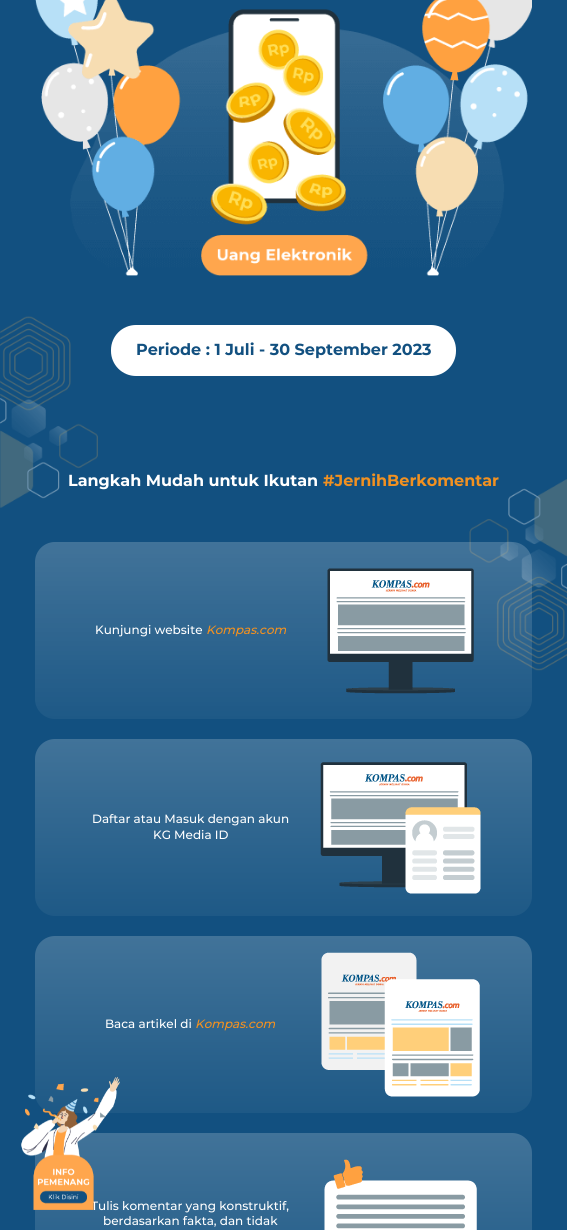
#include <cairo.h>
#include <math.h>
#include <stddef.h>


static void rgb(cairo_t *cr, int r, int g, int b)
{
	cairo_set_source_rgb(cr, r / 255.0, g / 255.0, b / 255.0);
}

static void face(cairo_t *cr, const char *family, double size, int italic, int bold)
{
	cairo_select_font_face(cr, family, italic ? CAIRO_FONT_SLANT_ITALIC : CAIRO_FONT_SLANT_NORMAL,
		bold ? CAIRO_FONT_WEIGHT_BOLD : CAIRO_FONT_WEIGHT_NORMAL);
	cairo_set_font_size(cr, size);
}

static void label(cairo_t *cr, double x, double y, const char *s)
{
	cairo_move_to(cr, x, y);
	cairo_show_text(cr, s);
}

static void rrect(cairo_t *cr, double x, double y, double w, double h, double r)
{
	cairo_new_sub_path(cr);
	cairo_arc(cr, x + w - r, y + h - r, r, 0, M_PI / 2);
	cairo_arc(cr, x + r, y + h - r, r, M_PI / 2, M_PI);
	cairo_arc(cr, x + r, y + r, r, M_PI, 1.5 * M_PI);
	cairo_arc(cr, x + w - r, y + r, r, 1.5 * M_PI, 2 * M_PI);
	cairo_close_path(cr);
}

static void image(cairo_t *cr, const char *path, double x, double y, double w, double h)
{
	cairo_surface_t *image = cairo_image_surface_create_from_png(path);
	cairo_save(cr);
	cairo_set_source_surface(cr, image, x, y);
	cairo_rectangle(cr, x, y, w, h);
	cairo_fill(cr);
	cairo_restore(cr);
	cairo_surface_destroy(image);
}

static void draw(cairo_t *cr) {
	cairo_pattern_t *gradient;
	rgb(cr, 18, 80, 128);
	cairo_paint(cr);
	image(cr, "image0.png", 0, 316, 567, 355);
	image(cr, "image1.png", 35, 0, 497, 276);
	rgb(cr, 255, 255, 255);
	rrect(cr, 111, 325, 345, 51, 25);
	cairo_fill(cr);
	face(cr, "Montserrat", 16, 0, 1);
	rgb(cr, 18, 80, 128);
	label(cr, 136, 355, "Periode : 1 Juli - 30 September 2023");
	rgb(cr, 255, 255, 255);
	label(cr, 68, 486, "Langkah Mudah untuk Ikutan");
	rgb(cr, 242, 145, 32);
	label(cr, 323, 486, "#JernihBerkomentar");
	gradient = cairo_pattern_create_linear(284, 719, 284, 542);
	cairo_pattern_add_color_stop_rgba(gradient, 0, 1, 1, 1, 0.05);
	cairo_pattern_add_color_stop_rgba(gradient, 1, 1, 1, 1, 0.2);
	cairo_set_source(cr, gradient);
	cairo_pattern_destroy(gradient);
	rrect(cr, 35, 542, 497, 177, 20);
	cairo_fill(cr);
	face(cr, "Montserrat Medium", 12, 0, 0);
	rgb(cr, 255, 255, 255);
	label(cr, 95, 634, "Kunjungi website");
	face(cr, "Montserrat Medium", 12, 1, 0);
	rgb(cr, 242, 145, 32);
	label(cr, 206, 634, "Kompas.com");
	image(cr, "image2.png", 327, 568, 147, 126);
	gradient = cairo_pattern_create_linear(284, 916, 284, 739);
	cairo_pattern_add_color_stop_rgba(gradient, 0, 0.118, 0.349, 0.525, 1);
	cairo_pattern_add_color_stop_rgba(gradient, 1, 0.255, 0.451, 0.6, 1);
	cairo_set_source(cr, gradient);
	cairo_pattern_destroy(gradient);
	rrect(cr, 35, 739, 497, 177, 20);
	cairo_fill(cr);
	face(cr, "Montserrat Medium", 12, 0, 0);
	rgb(cr, 255, 255, 255);
	label(cr, 92, 823, "Daftar atau Masuk dengan akun");
	label(cr, 153, 839, "KG Media ID");
	image(cr, "image3.png", 320, 762, 161, 132);
	gradient = cairo_pattern_create_linear(284, 1113, 284, 936);
	cairo_pattern_add_color_stop_rgba(gradient, 0, 0.118, 0.349, 0.525, 1);
	cairo_pattern_add_color_stop_rgba(gradient, 1, 0.255, 0.451, 0.6, 1);
	cairo_set_source(cr, gradient);
	cairo_pattern_destroy(gradient);
	rrect(cr, 35, 936, 497, 177, 20);
	cairo_fill(cr);
	rgb(cr, 255, 255, 255);
	label(cr, 105, 1028, "Baca artikel di");
	face(cr, "Montserrat Medium", 12, 1, 0);
	rgb(cr, 242, 145, 32);
	label(cr, 195, 1028, "Kompas.com");
	image(cr, "image4.png", 321, 952, 159, 145);
	gradient = cairo_pattern_create_linear(284, 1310, 284, 1133);
	cairo_pattern_add_color_stop_rgba(gradient, 0, 0.118, 0.349, 0.525, 1);
	cairo_pattern_add_color_stop_rgba(gradient, 1, 0.255, 0.451, 0.6, 1);
	cairo_set_source(cr, gradient);
	cairo_pattern_destroy(gradient);
	rrect(cr, 35, 1133, 497, 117, 20);
	cairo_fill(cr);
	face(cr, "Montserrat Medium", 12, 0, 0);
	rgb(cr, 255, 255, 255);
	label(cr, 91, 1210, "Tulis komentar yang konstruktif,");
	label(cr, 103, 1225, "berdasarkan fakta, dan tidak");
	image(cr, "image5.png", 324, 1159, 153, 71);
	image(cr, "image6.png", 21, 1076, 99, 134);
}

int main(void) {
	cairo_surface_t *surface = cairo_image_surface_create(CAIRO_FORMAT_RGB24, 567, 1230);
	cairo_t *cr = cairo_create(surface);
	cairo_font_options_t *options = cairo_font_options_create();
	cairo_font_options_set_hint_metrics(options, CAIRO_HINT_METRICS_OFF);
	cairo_font_options_set_hint_style(options, CAIRO_HINT_STYLE_NONE);
	cairo_set_font_options(cr, options);
	cairo_set_miter_limit(cr, 4);
	draw(cr);
	cairo_surface_write_to_png(surface, "render.png");
	cairo_font_options_destroy(options);
	cairo_destroy(cr);
	cairo_surface_destroy(surface);
	return 0;
}
